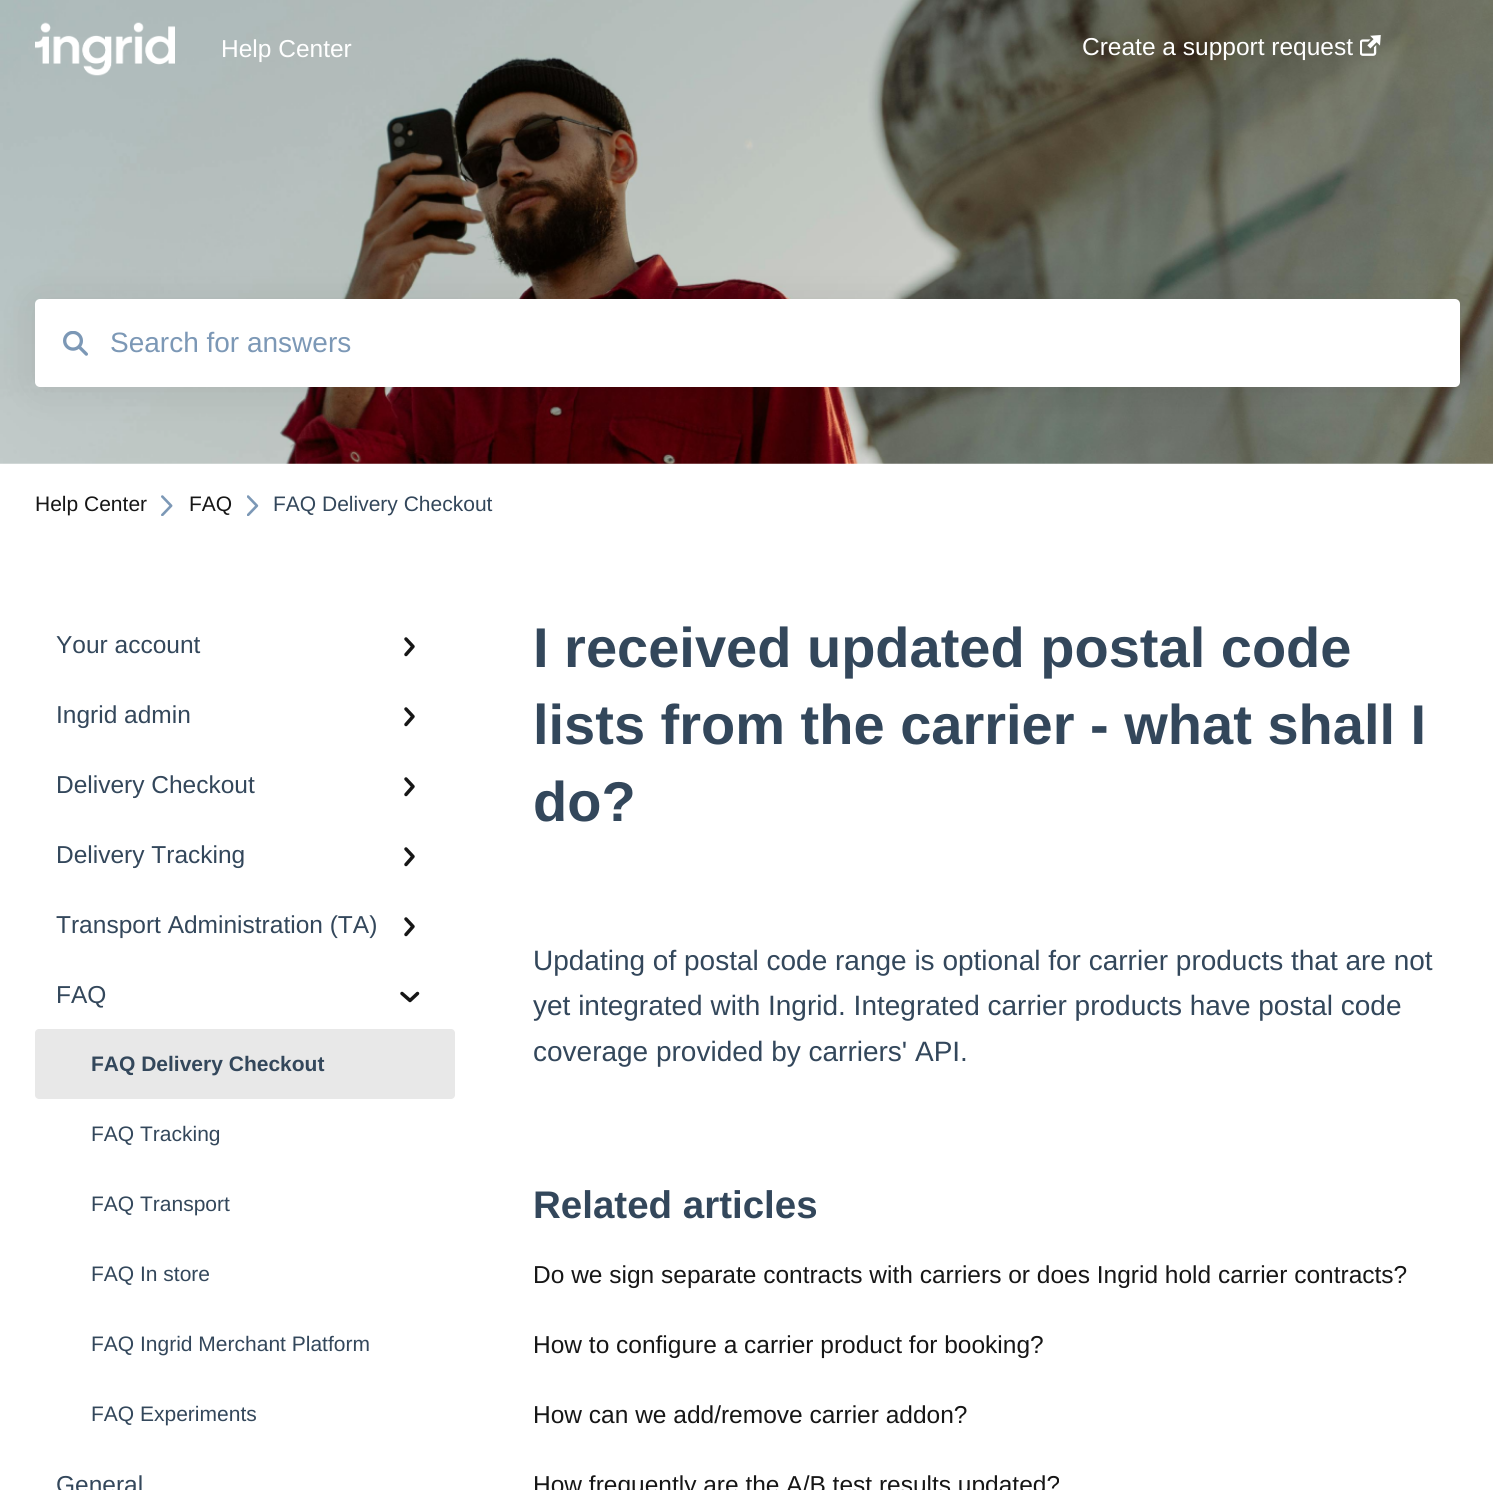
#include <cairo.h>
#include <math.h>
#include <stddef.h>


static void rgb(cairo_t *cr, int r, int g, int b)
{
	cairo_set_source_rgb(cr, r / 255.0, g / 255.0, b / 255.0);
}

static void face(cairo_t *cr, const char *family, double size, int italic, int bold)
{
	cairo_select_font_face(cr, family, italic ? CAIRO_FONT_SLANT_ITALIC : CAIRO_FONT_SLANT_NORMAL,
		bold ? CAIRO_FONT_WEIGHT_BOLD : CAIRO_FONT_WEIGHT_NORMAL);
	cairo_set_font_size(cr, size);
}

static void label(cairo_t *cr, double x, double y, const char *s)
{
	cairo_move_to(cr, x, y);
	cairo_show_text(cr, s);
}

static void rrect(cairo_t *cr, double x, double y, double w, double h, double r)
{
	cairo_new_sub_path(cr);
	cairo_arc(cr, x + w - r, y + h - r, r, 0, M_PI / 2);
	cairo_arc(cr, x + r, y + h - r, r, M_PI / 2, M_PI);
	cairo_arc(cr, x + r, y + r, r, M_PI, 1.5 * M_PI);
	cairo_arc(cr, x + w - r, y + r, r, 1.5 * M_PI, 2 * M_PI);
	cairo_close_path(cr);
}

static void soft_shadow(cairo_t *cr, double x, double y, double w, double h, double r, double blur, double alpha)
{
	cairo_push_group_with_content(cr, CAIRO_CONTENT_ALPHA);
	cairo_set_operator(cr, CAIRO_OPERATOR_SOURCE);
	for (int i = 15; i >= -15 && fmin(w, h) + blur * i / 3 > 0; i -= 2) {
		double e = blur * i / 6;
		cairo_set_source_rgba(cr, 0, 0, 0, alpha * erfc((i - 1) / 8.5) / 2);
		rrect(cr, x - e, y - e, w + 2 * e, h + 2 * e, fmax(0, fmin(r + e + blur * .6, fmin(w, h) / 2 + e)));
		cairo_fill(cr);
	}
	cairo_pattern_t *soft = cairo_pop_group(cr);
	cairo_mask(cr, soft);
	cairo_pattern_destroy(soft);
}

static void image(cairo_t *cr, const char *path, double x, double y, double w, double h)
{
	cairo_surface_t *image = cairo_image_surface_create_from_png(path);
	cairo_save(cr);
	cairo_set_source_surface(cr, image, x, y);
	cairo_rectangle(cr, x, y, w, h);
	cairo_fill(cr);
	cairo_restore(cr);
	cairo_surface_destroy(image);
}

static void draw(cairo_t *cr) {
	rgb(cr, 255, 255, 255);
	cairo_paint(cr);
	image(cr, "image2.png", 0, 0, 1493, 464);
	image(cr, "image0.png", 35, 22, 140, 54);
	face(cr, "Liberation Sans", 24.5, 0, 0);
	rgb(cr, 255, 255, 255);
	label(cr, 221, 57, "Help Center");
	label(cr, 1082, 55, "Create a support request");
	image(cr, "image1.png", 1360, 35, 21, 21);
	rgb(cr, 0, 0, 0);
	soft_shadow(cr, 35, 301, 1425, 88, 5, 21, 0.08);
	rgb(cr, 255, 255, 255);
	rrect(cr, 35, 299, 1425, 88, 5);
	cairo_fill(cr);
	image(cr, "image3.png", 63, 331, 25, 25);
	face(cr, "Liberation Sans", 28, 0, 0);
	rgb(cr, 124, 152, 182);
	label(cr, 110, 352, "Search for answers");
	face(cr, "Liberation Sans", 21, 0, 0);
	rgb(cr, 22, 22, 22);
	label(cr, 35, 511, "Help Center");
	image(cr, "image4.png", 161, 495, 12, 21);
	label(cr, 189, 511, "FAQ");
	image(cr, "image5.png", 247, 495, 12, 21);
	rgb(cr, 51, 71, 91);
	label(cr, 273, 511, "FAQ Delivery Checkout");
	face(cr, "Liberation Sans", 24.5, 0, 0);
	label(cr, 56, 653, "Your account");
	cairo_new_path(cr);
	cairo_move_to(cr, 406, 639);
	cairo_line_to(cr, 413, 646.5);
	cairo_line_to(cr, 406, 654.5);
	rgb(cr, 22, 22, 22);
	cairo_set_line_width(cr, 3.5);
	cairo_set_line_cap(cr, CAIRO_LINE_CAP_ROUND);
	cairo_set_line_join(cr, CAIRO_LINE_JOIN_ROUND);
	cairo_stroke(cr);
	rgb(cr, 51, 71, 91);
	label(cr, 56, 723, "Ingrid admin");
	cairo_new_path(cr);
	cairo_move_to(cr, 406, 709);
	cairo_line_to(cr, 413, 716.5);
	cairo_line_to(cr, 406, 724.5);
	rgb(cr, 22, 22, 22);
	cairo_stroke(cr);
	rgb(cr, 51, 71, 91);
	label(cr, 56, 793, "Delivery Checkout");
	cairo_new_path(cr);
	cairo_move_to(cr, 406, 779);
	cairo_line_to(cr, 413, 786.5);
	cairo_line_to(cr, 406, 794.5);
	rgb(cr, 22, 22, 22);
	cairo_stroke(cr);
	rgb(cr, 51, 71, 91);
	label(cr, 56, 863, "Delivery Tracking");
	cairo_new_path(cr);
	cairo_move_to(cr, 406, 849);
	cairo_line_to(cr, 413, 856.5);
	cairo_line_to(cr, 406, 864.5);
	rgb(cr, 22, 22, 22);
	cairo_stroke(cr);
	rgb(cr, 51, 71, 91);
	label(cr, 56, 933, "Transport Administration (TA)");
	cairo_new_path(cr);
	cairo_move_to(cr, 406, 919);
	cairo_line_to(cr, 413, 926.5);
	cairo_line_to(cr, 406, 934.5);
	rgb(cr, 22, 22, 22);
	cairo_stroke(cr);
	rgb(cr, 51, 71, 91);
	label(cr, 56, 1003, "FAQ");
	cairo_new_path(cr);
	cairo_move_to(cr, 417.5, 993.5);
	cairo_line_to(cr, 410, 1000.5);
	cairo_line_to(cr, 402, 993.5);
	rgb(cr, 22, 22, 22);
	cairo_stroke(cr);
	rgb(cr, 232, 232, 232);
	rrect(cr, 35, 1029, 420, 70, 4);
	cairo_fill(cr);
	face(cr, "Liberation Sans", 21, 0, 1);
	rgb(cr, 51, 71, 91);
	label(cr, 91, 1071, "FAQ Delivery Checkout");
	face(cr, "Liberation Sans", 21, 0, 0);
	label(cr, 91, 1141, "FAQ Tracking");
	label(cr, 91, 1211, "FAQ Transport");
	label(cr, 91, 1281, "FAQ In store");
	label(cr, 91, 1351, "FAQ Ingrid Merchant Platform");
	label(cr, 91, 1421, "FAQ Experiments");
	face(cr, "Liberation Sans", 24.5, 0, 0);
	label(cr, 56, 1493, "General");
	face(cr, "Liberation Sans", 56, 0, 1);
	label(cr, 533, 667, "I received updated postal code");
	label(cr, 533, 744, "lists from the carrier - what shall I");
	label(cr, 533, 821, "do?");
	face(cr, "Liberation Sans", 28, 0, 0);
	label(cr, 533, 970, "Updating of postal code range is optional for carrier products that are not");
	label(cr, 533, 1015, "yet integrated with Ingrid. Integrated carrier products have postal code");
	label(cr, 533, 1061, "coverage provided by carriers' API.");
	face(cr, "Liberation Sans", 38.5, 0, 1);
	label(cr, 533, 1218, "Related articles");
	face(cr, "Liberation Sans", 24.5, 0, 0);
	rgb(cr, 22, 22, 22);
	label(cr, 533, 1283, "Do we sign separate contracts with carriers or does Ingrid hold carrier contracts?");
	label(cr, 533, 1353, "How to configure a carrier product for booking?");
	label(cr, 533, 1423, "How can we add/remove carrier addon?");
	label(cr, 533, 1493, "How frequently are the A/B test results updated?");
}

int main(void) {
	cairo_surface_t *surface = cairo_image_surface_create(CAIRO_FORMAT_RGB24, 1493, 1490);
	cairo_t *cr = cairo_create(surface);
	cairo_font_options_t *options = cairo_font_options_create();
	cairo_font_options_set_hint_metrics(options, CAIRO_HINT_METRICS_OFF);
	cairo_font_options_set_hint_style(options, CAIRO_HINT_STYLE_NONE);
	cairo_set_font_options(cr, options);
	cairo_set_miter_limit(cr, 4);
	draw(cr);
	cairo_surface_write_to_png(surface, "render.png");
	cairo_font_options_destroy(options);
	cairo_destroy(cr);
	cairo_surface_destroy(surface);
	return 0;
}
